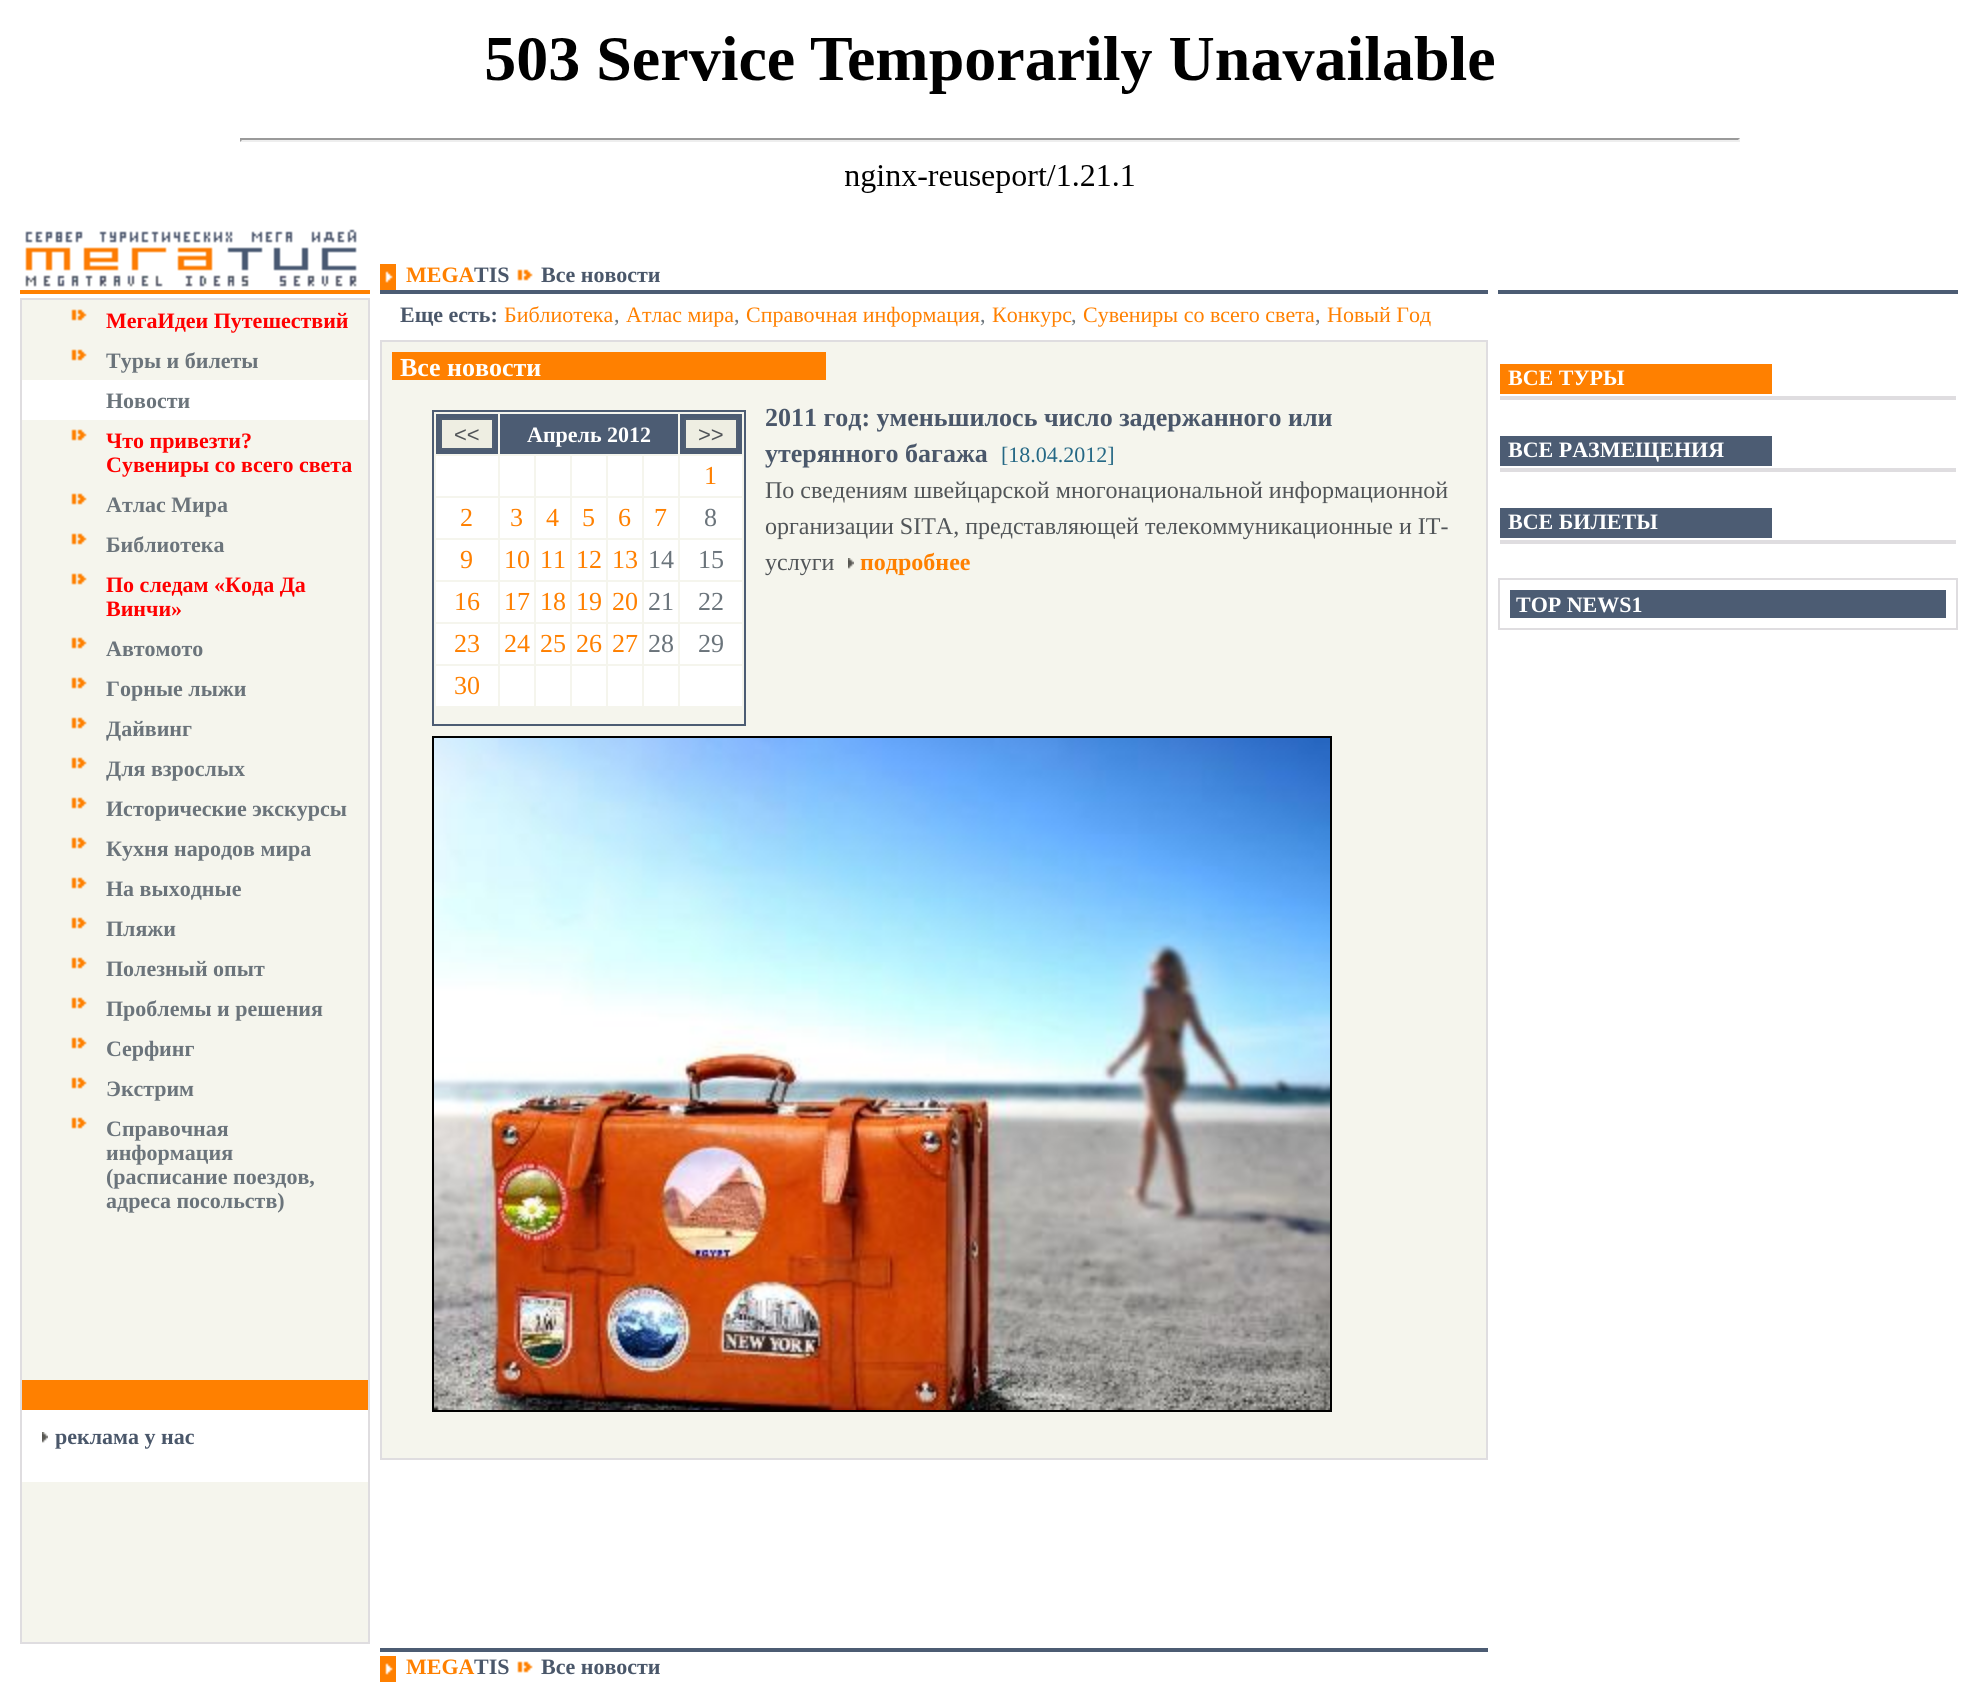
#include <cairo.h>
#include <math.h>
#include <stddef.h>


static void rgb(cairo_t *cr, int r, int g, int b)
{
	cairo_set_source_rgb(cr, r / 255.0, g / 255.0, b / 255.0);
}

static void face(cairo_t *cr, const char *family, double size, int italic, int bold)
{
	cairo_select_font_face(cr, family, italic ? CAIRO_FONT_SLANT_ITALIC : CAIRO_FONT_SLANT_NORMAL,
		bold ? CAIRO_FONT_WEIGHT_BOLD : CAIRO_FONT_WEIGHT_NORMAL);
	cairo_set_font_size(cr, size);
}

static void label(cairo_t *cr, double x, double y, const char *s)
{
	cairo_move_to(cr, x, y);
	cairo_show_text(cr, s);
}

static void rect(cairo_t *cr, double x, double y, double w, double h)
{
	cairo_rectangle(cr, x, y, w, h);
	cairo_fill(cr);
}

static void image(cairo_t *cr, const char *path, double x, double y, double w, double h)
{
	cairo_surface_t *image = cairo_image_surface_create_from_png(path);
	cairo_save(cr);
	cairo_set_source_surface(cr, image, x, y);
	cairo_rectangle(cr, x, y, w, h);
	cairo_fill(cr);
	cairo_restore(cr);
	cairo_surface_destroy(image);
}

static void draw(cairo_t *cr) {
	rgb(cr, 255, 255, 255);
	cairo_paint(cr);
	image(cr, "image0.png", 240, 36, 1500, 157);
	image(cr, "image1.png", 25, 229, 332, 58);
	image(cr, "image2.png", 380, 264, 16, 26);
	face(cr, "Liberation Serif", 22, 0, 1);
	rgb(cr, 255, 128, 0);
	label(cr, 406, 282, "MEGA");
	rgb(cr, 74, 87, 106);
	label(cr, 474, 282, "TIS");
	image(cr, "image3.png", 517, 269, 16, 12);
	label(cr, 541, 282, "Все новости");
	rgb(cr, 255, 128, 0);
	rect(cr, 20, 290, 350, 4);
	rgb(cr, 245, 245, 237);
	cairo_rectangle(cr, 21, 299, 348, 1344);
	cairo_fill_preserve(cr);
	rgb(cr, 223, 221, 224);
	cairo_stroke(cr);
	image(cr, "image4.png", 71, 309, 16, 12);
	rgb(cr, 255, 0, 0);
	label(cr, 106, 328, "МегаИдеи Путешествий");
	image(cr, "image4.png", 71, 349, 16, 12);
	rgb(cr, 107, 116, 123);
	label(cr, 106, 368, "Туры и билеты");
	rgb(cr, 255, 255, 255);
	rect(cr, 22, 380, 346, 40);
	rgb(cr, 107, 116, 123);
	label(cr, 106, 408, "Новости");
	image(cr, "image4.png", 71, 429, 16, 12);
	rgb(cr, 255, 0, 0);
	label(cr, 106, 448, "Что привезти?");
	label(cr, 106, 472, "Сувениры со всего света");
	image(cr, "image4.png", 71, 493, 16, 12);
	rgb(cr, 107, 116, 123);
	label(cr, 106, 512, "Атлас Мира");
	image(cr, "image4.png", 71, 533, 16, 12);
	label(cr, 106, 552, "Библиотека");
	image(cr, "image4.png", 71, 573, 16, 12);
	rgb(cr, 255, 0, 0);
	label(cr, 106, 592, "По следам «Кода Да");
	label(cr, 106, 616, "Винчи»");
	image(cr, "image4.png", 71, 637, 16, 12);
	rgb(cr, 107, 116, 123);
	label(cr, 106, 656, "Автомото");
	image(cr, "image4.png", 71, 677, 16, 12);
	label(cr, 106, 696, "Горные лыжи");
	image(cr, "image4.png", 71, 717, 16, 12);
	label(cr, 106, 736, "Дайвинг");
	image(cr, "image4.png", 71, 757, 16, 12);
	label(cr, 106, 776, "Для взрослых");
	image(cr, "image4.png", 71, 797, 16, 12);
	label(cr, 106, 816, "Исторические экскурсы");
	image(cr, "image4.png", 71, 837, 16, 12);
	label(cr, 106, 856, "Кухня народов мира");
	image(cr, "image4.png", 71, 877, 16, 12);
	label(cr, 106, 896, "На выходные");
	image(cr, "image4.png", 71, 917, 16, 12);
	label(cr, 106, 936, "Пляжи");
	image(cr, "image4.png", 71, 957, 16, 12);
	label(cr, 106, 976, "Полезный опыт");
	image(cr, "image4.png", 71, 997, 16, 12);
	label(cr, 106, 1016, "Проблемы и решения");
	image(cr, "image4.png", 71, 1037, 16, 12);
	label(cr, 106, 1056, "Серфинг");
	image(cr, "image4.png", 71, 1077, 16, 12);
	label(cr, 106, 1096, "Экстрим");
	image(cr, "image4.png", 71, 1117, 16, 12);
	label(cr, 106, 1136, "Справочная");
	label(cr, 106, 1160, "информация");
	label(cr, 106, 1184, "(расписание поездов,");
	label(cr, 106, 1208, "адреса посольств)");
	rgb(cr, 255, 255, 255);
	rect(cr, 22, 1410, 346, 72);
	rgb(cr, 255, 128, 0);
	rect(cr, 22, 1380, 346, 30);
	image(cr, "image5.png", 42, 1432, 6, 11);
	rgb(cr, 74, 87, 106);
	label(cr, 55, 1444, "реклама у нас");
	rgb(cr, 76, 92, 115);
	rect(cr, 380, 290, 1108, 4);
	rgb(cr, 74, 87, 106);
	label(cr, 400, 322, "Еще есть:");
	face(cr, "Liberation Serif", 22, 0, 0);
	rgb(cr, 255, 128, 0);
	label(cr, 504, 322, "Библиотека");
	rgb(cr, 107, 116, 123);
	label(cr, 614, 322, ",");
	rgb(cr, 255, 128, 0);
	label(cr, 626, 322, "Атлас мира");
	rgb(cr, 107, 116, 123);
	label(cr, 734, 322, ",");
	rgb(cr, 255, 128, 0);
	label(cr, 746, 322, "Справочная информация");
	rgb(cr, 107, 116, 123);
	label(cr, 980, 322, ",");
	rgb(cr, 255, 128, 0);
	label(cr, 992, 322, "Конкурс");
	rgb(cr, 107, 116, 123);
	label(cr, 1071, 322, ",");
	rgb(cr, 255, 128, 0);
	label(cr, 1083, 322, "Сувениры со всего света");
	rgb(cr, 107, 116, 123);
	label(cr, 1315, 322, ",");
	rgb(cr, 255, 128, 0);
	label(cr, 1327, 322, "Новый Год");
	rgb(cr, 245, 245, 237);
	cairo_rectangle(cr, 381, 341, 1106, 1118);
	cairo_fill_preserve(cr);
	rgb(cr, 223, 221, 224);
	cairo_stroke(cr);
	rgb(cr, 255, 128, 0);
	rect(cr, 392, 352, 434, 28);
	face(cr, "Liberation Serif", 26, 0, 1);
	rgb(cr, 255, 255, 255);
	label(cr, 400, 376, "Все новости");
	cairo_rectangle(cr, 433, 411, 312, 314);
	rgb(cr, 76, 92, 115);
	cairo_stroke(cr);
	rect(cr, 436, 414, 62, 40);
	rgb(cr, 238, 238, 226);
	cairo_rectangle(cr, 441, 419, 52, 30);
	cairo_fill_preserve(cr);
	rgb(cr, 80, 95, 114);
	cairo_stroke(cr);
	face(cr, "Liberation Sans", 22, 0, 0);
	rgb(cr, 81, 85, 88);
	label(cr, 454, 442, "<<");
	rgb(cr, 76, 92, 115);
	rect(cr, 500, 414, 178, 40);
	face(cr, "Liberation Serif", 22, 0, 1);
	rgb(cr, 255, 255, 255);
	label(cr, 527, 442, "Апрель 2012");
	rgb(cr, 76, 92, 115);
	rect(cr, 680, 414, 62, 40);
	rgb(cr, 238, 238, 226);
	cairo_rectangle(cr, 685, 419, 52, 30);
	cairo_fill_preserve(cr);
	rgb(cr, 80, 95, 114);
	cairo_stroke(cr);
	face(cr, "Liberation Sans", 22, 0, 0);
	rgb(cr, 81, 85, 88);
	label(cr, 698, 442, ">>");
	rgb(cr, 255, 255, 255);
	rect(cr, 436, 456, 62, 40);
	rect(cr, 500, 456, 34, 40);
	rect(cr, 536, 456, 34, 40);
	rect(cr, 572, 456, 34, 40);
	rect(cr, 608, 456, 34, 40);
	rect(cr, 644, 456, 34, 40);
	rect(cr, 680, 456, 62, 40);
	face(cr, "Liberation Serif", 26, 0, 0);
	rgb(cr, 255, 128, 0);
	label(cr, 704, 484, "1");
	rgb(cr, 255, 255, 255);
	rect(cr, 436, 498, 62, 40);
	rgb(cr, 255, 128, 0);
	label(cr, 460, 526, "2");
	rgb(cr, 255, 255, 255);
	rect(cr, 500, 498, 34, 40);
	rgb(cr, 255, 128, 0);
	label(cr, 510, 526, "3");
	rgb(cr, 255, 255, 255);
	rect(cr, 536, 498, 34, 40);
	rgb(cr, 255, 128, 0);
	label(cr, 546, 526, "4");
	rgb(cr, 255, 255, 255);
	rect(cr, 572, 498, 34, 40);
	rgb(cr, 255, 128, 0);
	label(cr, 582, 526, "5");
	rgb(cr, 255, 255, 255);
	rect(cr, 608, 498, 34, 40);
	rgb(cr, 255, 128, 0);
	label(cr, 618, 526, "6");
	rgb(cr, 255, 255, 255);
	rect(cr, 644, 498, 34, 40);
	rgb(cr, 255, 128, 0);
	label(cr, 654, 526, "7");
	rgb(cr, 255, 255, 255);
	rect(cr, 680, 498, 62, 40);
	rgb(cr, 107, 116, 123);
	label(cr, 704, 526, "8");
	rgb(cr, 255, 255, 255);
	rect(cr, 436, 540, 62, 40);
	rgb(cr, 255, 128, 0);
	label(cr, 460, 568, "9");
	rgb(cr, 255, 255, 255);
	rect(cr, 500, 540, 34, 40);
	rgb(cr, 255, 128, 0);
	label(cr, 504, 568, "10");
	rgb(cr, 255, 255, 255);
	rect(cr, 536, 540, 34, 40);
	rgb(cr, 255, 128, 0);
	label(cr, 540, 568, "11");
	rgb(cr, 255, 255, 255);
	rect(cr, 572, 540, 34, 40);
	rgb(cr, 255, 128, 0);
	label(cr, 576, 568, "12");
	rgb(cr, 255, 255, 255);
	rect(cr, 608, 540, 34, 40);
	rgb(cr, 255, 128, 0);
	label(cr, 612, 568, "13");
	rgb(cr, 255, 255, 255);
	rect(cr, 644, 540, 34, 40);
	rgb(cr, 107, 116, 123);
	label(cr, 648, 568, "14");
	rgb(cr, 255, 255, 255);
	rect(cr, 680, 540, 62, 40);
	rgb(cr, 107, 116, 123);
	label(cr, 698, 568, "15");
	rgb(cr, 255, 255, 255);
	rect(cr, 436, 582, 62, 40);
	rgb(cr, 255, 128, 0);
	label(cr, 454, 610, "16");
	rgb(cr, 255, 255, 255);
	rect(cr, 500, 582, 34, 40);
	rgb(cr, 255, 128, 0);
	label(cr, 504, 610, "17");
	rgb(cr, 255, 255, 255);
	rect(cr, 536, 582, 34, 40);
	rgb(cr, 255, 128, 0);
	label(cr, 540, 610, "18");
	rgb(cr, 255, 255, 255);
	rect(cr, 572, 582, 34, 40);
	rgb(cr, 255, 128, 0);
	label(cr, 576, 610, "19");
	rgb(cr, 255, 255, 255);
	rect(cr, 608, 582, 34, 40);
	rgb(cr, 255, 128, 0);
	label(cr, 612, 610, "20");
	rgb(cr, 255, 255, 255);
	rect(cr, 644, 582, 34, 40);
	rgb(cr, 107, 116, 123);
	label(cr, 648, 610, "21");
	rgb(cr, 255, 255, 255);
	rect(cr, 680, 582, 62, 40);
	rgb(cr, 107, 116, 123);
	label(cr, 698, 610, "22");
	rgb(cr, 255, 255, 255);
	rect(cr, 436, 624, 62, 40);
	rgb(cr, 255, 128, 0);
	label(cr, 454, 652, "23");
	rgb(cr, 255, 255, 255);
	rect(cr, 500, 624, 34, 40);
	rgb(cr, 255, 128, 0);
	label(cr, 504, 652, "24");
	rgb(cr, 255, 255, 255);
	rect(cr, 536, 624, 34, 40);
	rgb(cr, 255, 128, 0);
	label(cr, 540, 652, "25");
	rgb(cr, 255, 255, 255);
	rect(cr, 572, 624, 34, 40);
	rgb(cr, 255, 128, 0);
	label(cr, 576, 652, "26");
	rgb(cr, 255, 255, 255);
	rect(cr, 608, 624, 34, 40);
	rgb(cr, 255, 128, 0);
	label(cr, 612, 652, "27");
	rgb(cr, 255, 255, 255);
	rect(cr, 644, 624, 34, 40);
	rgb(cr, 107, 116, 123);
	label(cr, 648, 652, "28");
	rgb(cr, 255, 255, 255);
	rect(cr, 680, 624, 62, 40);
	rgb(cr, 107, 116, 123);
	label(cr, 698, 652, "29");
	rgb(cr, 255, 255, 255);
	rect(cr, 436, 666, 62, 40);
	rgb(cr, 255, 128, 0);
	label(cr, 454, 694, "30");
	rgb(cr, 255, 255, 255);
	rect(cr, 500, 666, 34, 40);
	rect(cr, 536, 666, 34, 40);
	rect(cr, 572, 666, 34, 40);
	rect(cr, 608, 666, 34, 40);
	rect(cr, 644, 666, 34, 40);
	rect(cr, 680, 666, 62, 40);
	face(cr, "Liberation Serif", 26, 0, 1);
	rgb(cr, 74, 87, 106);
	label(cr, 765, 426, "2011 год: уменьшилось число задержанного или");
	label(cr, 765, 462, "утерянного багажа");
	face(cr, "Liberation Serif", 22, 0, 0);
	rgb(cr, 37, 104, 133);
	label(cr, 1001, 462, "[18.04.2012]");
	face(cr, "Liberation Serif", 24, 0, 0);
	rgb(cr, 81, 85, 88);
	label(cr, 765, 498, "По сведениям швейцарской многонациональной информационной");
	label(cr, 765, 534, "организации SITA, представляющей телекоммуникационные и IT-");
	label(cr, 765, 570, "услуги");
	image(cr, "image6.png", 848, 558, 6, 11);
	face(cr, "Liberation Serif", 24, 0, 1);
	rgb(cr, 255, 128, 0);
	label(cr, 860, 570, "подробнее");
	cairo_rectangle(cr, 433, 737, 898, 674);
	rgb(cr, 0, 0, 0);
	cairo_stroke(cr);
	image(cr, "image7.png", 434, 738, 896, 672);
	rgb(cr, 76, 92, 115);
	rect(cr, 1498, 290, 460, 4);
	rgb(cr, 255, 128, 0);
	rect(cr, 1500, 364, 272, 30);
	face(cr, "Liberation Serif", 22, 0, 1);
	rgb(cr, 255, 255, 255);
	label(cr, 1508, 385, "ВСЕ ТУРЫ");
	rgb(cr, 223, 221, 224);
	rect(cr, 1500, 396, 456, 4);
	rgb(cr, 76, 92, 115);
	rect(cr, 1500, 436, 272, 30);
	rgb(cr, 255, 255, 255);
	label(cr, 1508, 457, "ВСЕ РАЗМЕЩЕНИЯ");
	rgb(cr, 223, 221, 224);
	rect(cr, 1500, 468, 456, 4);
	rgb(cr, 76, 92, 115);
	rect(cr, 1500, 508, 272, 30);
	rgb(cr, 255, 255, 255);
	label(cr, 1508, 529, "ВСЕ БИЛЕТЫ");
	rgb(cr, 223, 221, 224);
	rect(cr, 1500, 540, 456, 4);
	cairo_rectangle(cr, 1499, 579, 458, 50);
	cairo_stroke(cr);
	rgb(cr, 76, 92, 115);
	rect(cr, 1510, 590, 436, 28);
	rgb(cr, 255, 255, 255);
	label(cr, 1516, 612, "TOP NEWS1");
	rgb(cr, 76, 92, 115);
	rect(cr, 380, 1648, 1108, 4);
	image(cr, "image2.png", 380, 1656, 16, 26);
	rgb(cr, 255, 128, 0);
	label(cr, 406, 1674, "MEGA");
	rgb(cr, 74, 87, 106);
	label(cr, 474, 1674, "TIS");
	image(cr, "image3.png", 517, 1661, 16, 12);
	label(cr, 541, 1674, "Все новости");
}

int main(void) {
	cairo_surface_t *surface = cairo_image_surface_create(CAIRO_FORMAT_RGB24, 1978, 1683);
	cairo_t *cr = cairo_create(surface);
	cairo_font_options_t *options = cairo_font_options_create();
	cairo_font_options_set_hint_metrics(options, CAIRO_HINT_METRICS_OFF);
	cairo_font_options_set_hint_style(options, CAIRO_HINT_STYLE_NONE);
	cairo_set_font_options(cr, options);
	cairo_set_miter_limit(cr, 4);
	draw(cr);
	cairo_surface_write_to_png(surface, "render.png");
	cairo_font_options_destroy(options);
	cairo_destroy(cr);
	cairo_surface_destroy(surface);
	return 0;
}
